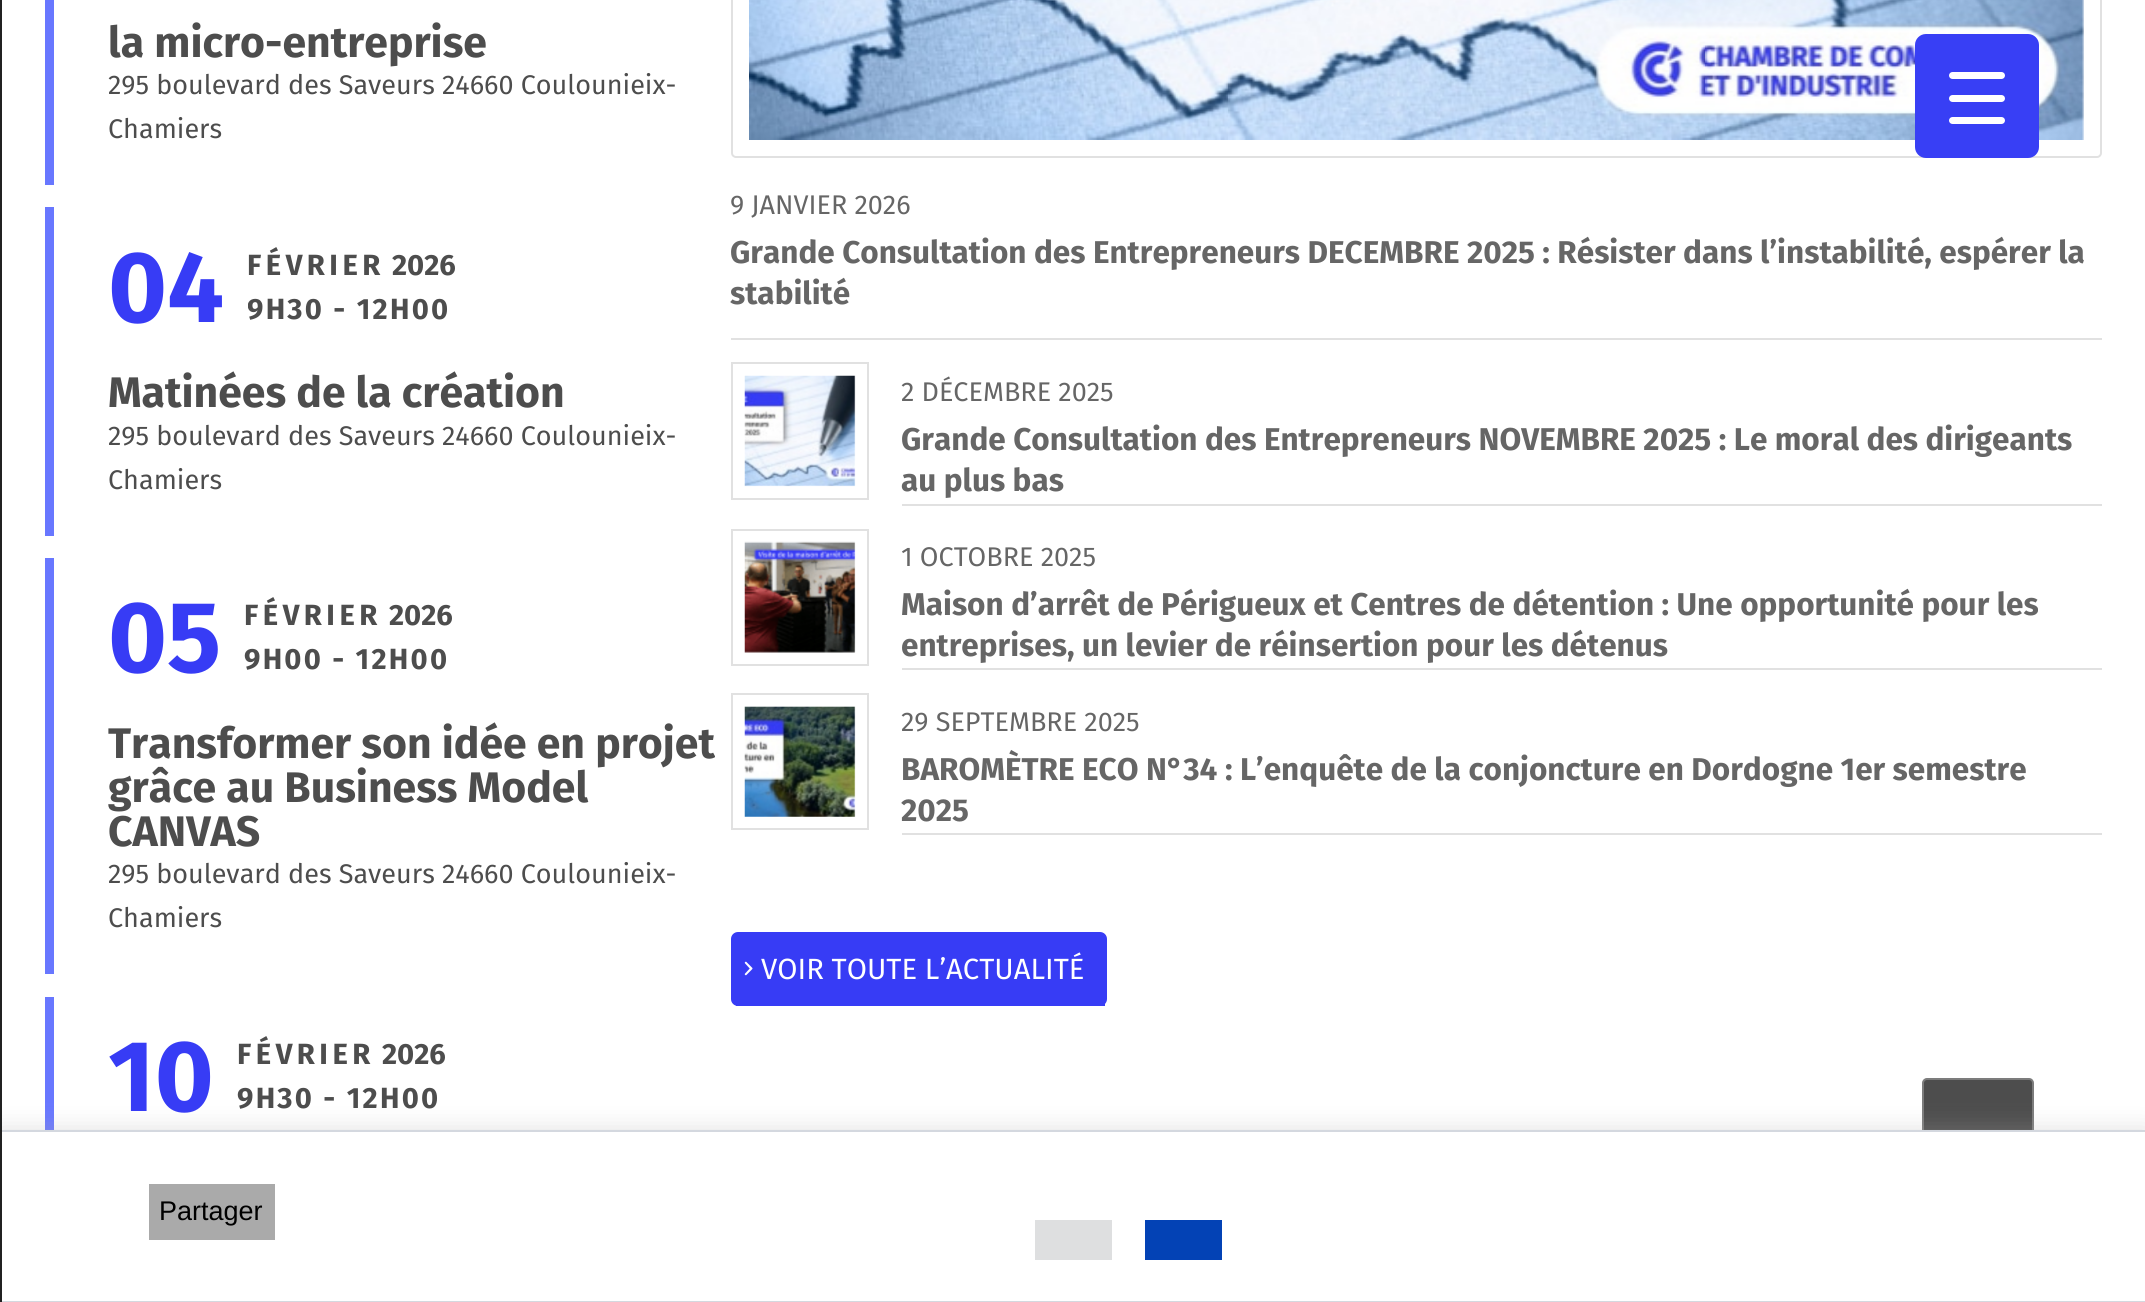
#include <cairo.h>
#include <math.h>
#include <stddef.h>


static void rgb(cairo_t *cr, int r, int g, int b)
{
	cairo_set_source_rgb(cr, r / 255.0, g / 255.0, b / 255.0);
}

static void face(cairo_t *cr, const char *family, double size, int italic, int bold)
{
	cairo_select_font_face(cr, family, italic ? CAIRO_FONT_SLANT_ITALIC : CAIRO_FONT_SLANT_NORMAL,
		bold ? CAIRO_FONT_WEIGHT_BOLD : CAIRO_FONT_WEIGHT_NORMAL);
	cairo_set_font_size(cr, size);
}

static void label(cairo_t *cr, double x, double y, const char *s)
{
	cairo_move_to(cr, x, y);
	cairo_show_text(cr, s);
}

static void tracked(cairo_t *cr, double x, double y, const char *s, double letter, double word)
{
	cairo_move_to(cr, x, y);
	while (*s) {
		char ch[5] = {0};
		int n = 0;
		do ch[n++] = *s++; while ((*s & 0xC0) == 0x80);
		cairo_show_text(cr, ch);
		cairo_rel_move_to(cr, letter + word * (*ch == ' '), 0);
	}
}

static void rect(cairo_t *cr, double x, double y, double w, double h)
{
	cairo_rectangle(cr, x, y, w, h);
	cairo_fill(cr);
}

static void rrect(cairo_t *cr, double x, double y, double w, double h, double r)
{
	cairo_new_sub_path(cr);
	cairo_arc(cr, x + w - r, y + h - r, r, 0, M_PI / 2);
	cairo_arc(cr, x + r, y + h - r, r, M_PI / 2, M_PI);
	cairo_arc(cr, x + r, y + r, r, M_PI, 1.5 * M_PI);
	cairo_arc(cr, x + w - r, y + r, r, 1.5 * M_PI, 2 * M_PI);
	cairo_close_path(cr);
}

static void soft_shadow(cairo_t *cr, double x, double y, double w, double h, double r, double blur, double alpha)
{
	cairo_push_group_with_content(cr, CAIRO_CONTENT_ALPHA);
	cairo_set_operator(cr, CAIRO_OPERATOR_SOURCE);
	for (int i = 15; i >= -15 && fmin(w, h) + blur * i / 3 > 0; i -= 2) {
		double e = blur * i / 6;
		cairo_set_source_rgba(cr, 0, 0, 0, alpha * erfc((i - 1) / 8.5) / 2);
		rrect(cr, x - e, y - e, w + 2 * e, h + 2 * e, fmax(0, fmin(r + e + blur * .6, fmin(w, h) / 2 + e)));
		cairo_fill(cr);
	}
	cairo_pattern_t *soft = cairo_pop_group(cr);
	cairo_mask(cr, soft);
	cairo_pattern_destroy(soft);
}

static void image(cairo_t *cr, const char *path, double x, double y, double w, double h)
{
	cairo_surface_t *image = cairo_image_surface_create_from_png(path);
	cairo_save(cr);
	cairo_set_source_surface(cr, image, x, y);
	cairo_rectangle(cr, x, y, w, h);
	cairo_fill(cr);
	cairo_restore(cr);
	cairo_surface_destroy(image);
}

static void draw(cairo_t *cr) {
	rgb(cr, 255, 255, 255);
	cairo_paint(cr);
	rgb(cr, 104, 119, 255);
	rect(cr, 45, 997, 9, 133);
	rgb(cr, 77, 77, 77);
	rrect(cr, 1923, 1079, 110, 110, 4);
	cairo_fill_preserve(cr);
	rgb(cr, 124, 124, 124);
	cairo_stroke(cr);
	rgb(cr, 172, 171, 171);
	soft_shadow(cr, 0, 1127, 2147, 174, 0, 11, 0.3);
	rgb(cr, 255, 255, 255);
	cairo_rectangle(cr, 1, 1131, 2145, 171);
	cairo_fill_preserve(cr);
	rgb(cr, 212, 216, 223);
	cairo_stroke(cr);
	rgb(cr, 33, 33, 33);
	rect(cr, 0, 0, 2, 1302);
	rgb(cr, 104, 119, 255);
	rect(cr, 45, 0, 9, 185);
	face(cr, "Fira Sans", 42.75, 0, 1);
	rgb(cr, 77, 77, 77);
	label(cr, 108, 57, "la micro-entreprise");
	face(cr, "Fira Sans", 27, 0, 0);
	label(cr, 108, 94, "295 boulevard des Saveurs 24660 Coulounieix-");
	label(cr, 108, 138, "Chamiers");
	rgb(cr, 104, 119, 255);
	rect(cr, 45, 207, 9, 329);
	face(cr, "Fira Sans", 101, 0, 1);
	rgb(cr, 55, 60, 245);
	label(cr, 108, 322, "04");
	face(cr, "Fira Sans", 29.25, 0, 1);
	rgb(cr, 77, 77, 77);
	tracked(cr, 247, 275, "FÉVRIER", 4.5, 0);
	label(cr, 392, 275, "2026");
	cairo_save(cr);
	cairo_rectangle(cr, 248, 239, 483, 92);
	cairo_clip(cr);
	tracked(cr, 247, 319, "9H30 - 12H00", 2.25, 0);
	cairo_restore(cr);
	face(cr, "Fira Sans", 42.75, 0, 1);
	label(cr, 108, 407, "Matinées de la création");
	face(cr, "Fira Sans", 27, 0, 0);
	label(cr, 108, 445, "295 boulevard des Saveurs 24660 Coulounieix-");
	label(cr, 108, 489, "Chamiers");
	rgb(cr, 104, 119, 255);
	rect(cr, 45, 558, 9, 416);
	face(cr, "Fira Sans", 101, 0, 1);
	rgb(cr, 55, 60, 245);
	label(cr, 108, 672, "05");
	face(cr, "Fira Sans", 29.25, 0, 1);
	rgb(cr, 77, 77, 77);
	tracked(cr, 244, 625, "FÉVRIER", 4.5, 0);
	label(cr, 389, 625, "2026");
	tracked(cr, 244, 669, "9H00 - 12H00", 2.25, 0);
	face(cr, "Fira Sans", 42.75, 0, 1);
	label(cr, 108, 758, "Transformer son idée en projet");
	label(cr, 108, 802, "grâce au Business Model");
	label(cr, 108, 846, "CANVAS");
	face(cr, "Fira Sans", 27, 0, 0);
	label(cr, 108, 883, "295 boulevard des Saveurs 24660 Coulounieix-");
	label(cr, 108, 927, "Chamiers");
	face(cr, "Fira Sans", 101, 0, 1);
	rgb(cr, 55, 60, 245);
	label(cr, 108, 1111, "10");
	face(cr, "Fira Sans", 29.25, 0, 1);
	rgb(cr, 77, 77, 77);
	tracked(cr, 237, 1064, "FÉVRIER", 4.5, 0);
	label(cr, 382, 1064, "2026");
	tracked(cr, 237, 1108, "9H30 - 12H00", 2.25, 0);
	rrect(cr, 732, -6, 1369, 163, 4);
	rgb(cr, 225, 225, 225);
	cairo_stroke(cr);
	image(cr, "image0.png", 749, 0, 1335, 140);
	rect(cr, 731, 338, 1371, 2);
	face(cr, "Fira Sans", 27, 0, 0);
	rgb(cr, 102, 102, 102);
	label(cr, 730, 214, "9 JANVIER 2026");
	face(cr, "Fira Sans", 31.5, 0, 1);
	label(cr, 730, 263, "Grande Consultation des Entrepreneurs DECEMBRE 2025 : Résister dans l’instabilité, espérer la");
	label(cr, 730, 304, "stabilité");
	cairo_rectangle(cr, 732, 363, 136, 136);
	rgb(cr, 225, 225, 225);
	cairo_stroke(cr);
	image(cr, "image1.png", 744, 375, 112, 112);
	rect(cr, 902, 504, 1200, 2);
	face(cr, "Fira Sans", 27, 0, 0);
	rgb(cr, 102, 102, 102);
	label(cr, 901, 401, "2 DÉCEMBRE 2025");
	face(cr, "Fira Sans", 31.5, 0, 1);
	label(cr, 901, 450, "Grande Consultation des Entrepreneurs NOVEMBRE 2025 : Le moral des dirigeants");
	label(cr, 901, 491, "au plus bas");
	cairo_rectangle(cr, 732, 530, 136, 135);
	rgb(cr, 225, 225, 225);
	cairo_stroke(cr);
	image(cr, "image2.png", 744, 541, 112, 112);
	rect(cr, 902, 668, 1200, 2);
	face(cr, "Fira Sans", 27, 0, 0);
	rgb(cr, 102, 102, 102);
	label(cr, 901, 566, "1 OCTOBRE 2025");
	face(cr, "Fira Sans", 31.5, 0, 1);
	label(cr, 901, 615, "Maison d’arrêt de Périgueux et Centres de détention : Une opportunité pour les");
	label(cr, 901, 656, "entreprises, un levier de réinsertion pour les détenus");
	cairo_rectangle(cr, 732, 694, 136, 135);
	rgb(cr, 225, 225, 225);
	cairo_stroke(cr);
	image(cr, "image3.png", 744, 706, 112, 111);
	rect(cr, 902, 833, 1200, 2);
	face(cr, "Fira Sans", 27, 0, 0);
	rgb(cr, 102, 102, 102);
	label(cr, 901, 731, "29 SEPTEMBRE 2025");
	face(cr, "Fira Sans", 31.5, 0, 1);
	label(cr, 901, 780, "BAROMÈTRE ECO N°34 : L’enquête de la conjoncture en Dordogne 1er semestre");
	label(cr, 901, 821, "2025");
	rgb(cr, 55, 60, 245);
	rrect(cr, 731, 932, 376, 74, 7);
	cairo_fill(cr);
	rect(cr, 736, 1004, 369, 2);
	image(cr, "image4.png", 744, 961, 9, 15);
	face(cr, "Fira Sans", 29.25, 0, 0);
	rgb(cr, 255, 255, 255);
	label(cr, 761, 979, "VOIR TOUTE L’ACTUALITÉ");
	rgb(cr, 56, 63, 245);
	rrect(cr, 1915, 34, 124, 124, 11);
	cairo_fill(cr);
	rgb(cr, 255, 255, 255);
	rrect(cr, 1949, 95, 56, 7, 3.5);
	cairo_fill(cr);
	rrect(cr, 1949, 72, 56, 7, 3.5);
	cairo_fill(cr);
	rrect(cr, 1949, 117, 56, 7, 3.5);
	cairo_fill(cr);
	rgb(cr, 222, 223, 224);
	rect(cr, 1035, 1220, 77, 40);
	rgb(cr, 3, 66, 181);
	rect(cr, 1145, 1220, 77, 40);
	rgb(cr, 170, 170, 170);
	rect(cr, 149, 1184, 126, 56);
	face(cr, "Liberation Sans", 27, 0, 0);
	rgb(cr, 0, 0, 0);
	label(cr, 159, 1220, "Partager");
}

int main(void) {
	cairo_surface_t *surface = cairo_image_surface_create(CAIRO_FORMAT_RGB24, 2145, 1302);
	cairo_t *cr = cairo_create(surface);
	cairo_font_options_t *options = cairo_font_options_create();
	cairo_font_options_set_hint_metrics(options, CAIRO_HINT_METRICS_OFF);
	cairo_font_options_set_hint_style(options, CAIRO_HINT_STYLE_NONE);
	cairo_set_font_options(cr, options);
	cairo_set_miter_limit(cr, 4);
	draw(cr);
	cairo_surface_write_to_png(surface, "render.png");
	cairo_font_options_destroy(options);
	cairo_destroy(cr);
	cairo_surface_destroy(surface);
	return 0;
}
